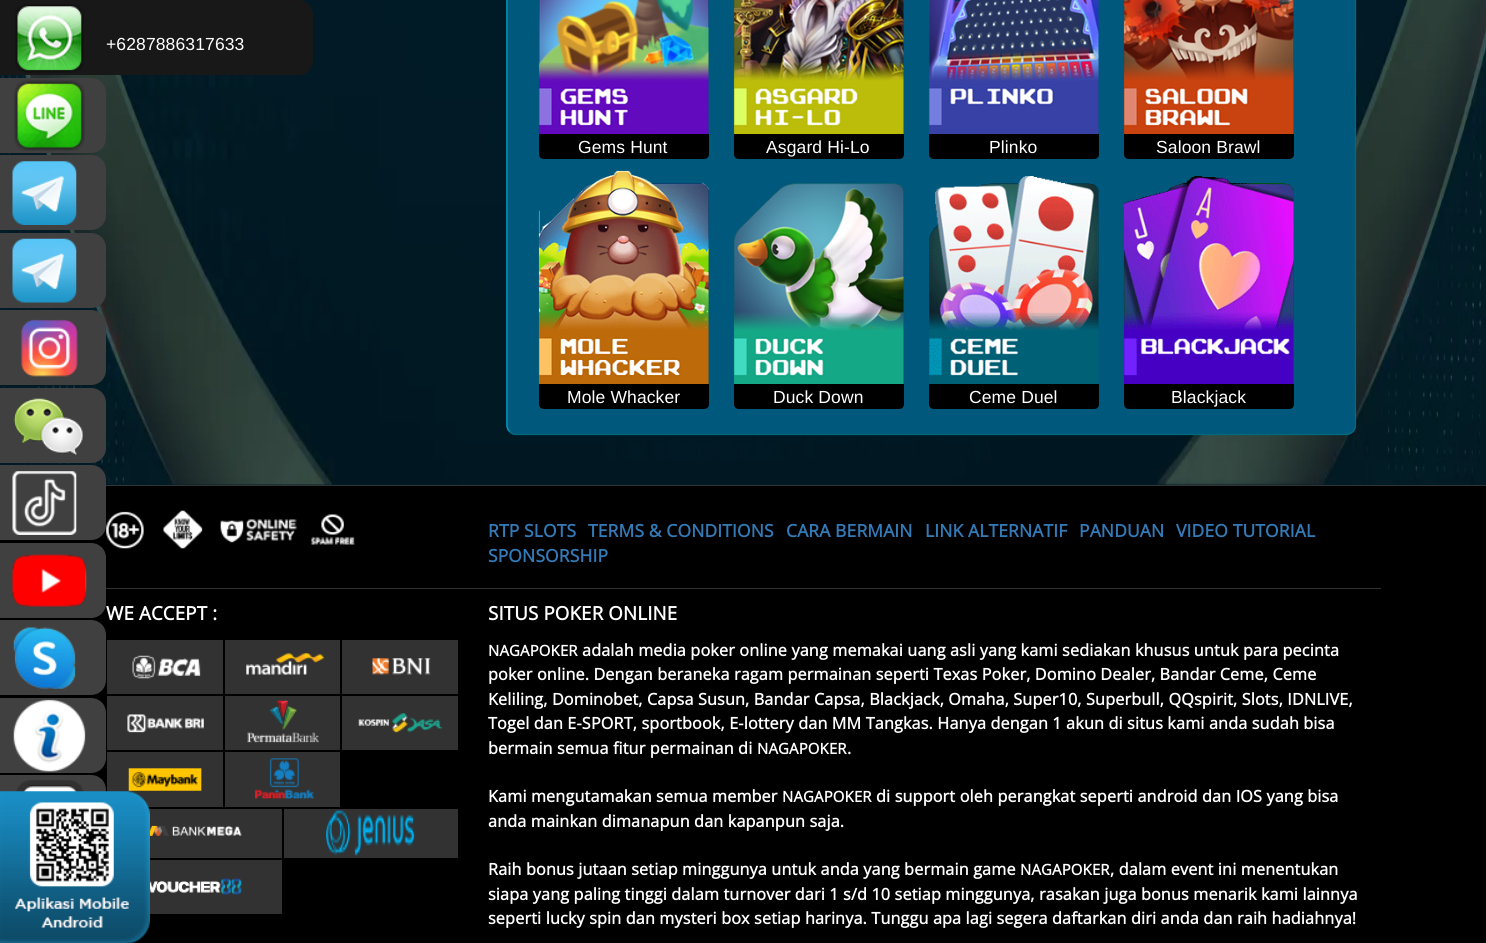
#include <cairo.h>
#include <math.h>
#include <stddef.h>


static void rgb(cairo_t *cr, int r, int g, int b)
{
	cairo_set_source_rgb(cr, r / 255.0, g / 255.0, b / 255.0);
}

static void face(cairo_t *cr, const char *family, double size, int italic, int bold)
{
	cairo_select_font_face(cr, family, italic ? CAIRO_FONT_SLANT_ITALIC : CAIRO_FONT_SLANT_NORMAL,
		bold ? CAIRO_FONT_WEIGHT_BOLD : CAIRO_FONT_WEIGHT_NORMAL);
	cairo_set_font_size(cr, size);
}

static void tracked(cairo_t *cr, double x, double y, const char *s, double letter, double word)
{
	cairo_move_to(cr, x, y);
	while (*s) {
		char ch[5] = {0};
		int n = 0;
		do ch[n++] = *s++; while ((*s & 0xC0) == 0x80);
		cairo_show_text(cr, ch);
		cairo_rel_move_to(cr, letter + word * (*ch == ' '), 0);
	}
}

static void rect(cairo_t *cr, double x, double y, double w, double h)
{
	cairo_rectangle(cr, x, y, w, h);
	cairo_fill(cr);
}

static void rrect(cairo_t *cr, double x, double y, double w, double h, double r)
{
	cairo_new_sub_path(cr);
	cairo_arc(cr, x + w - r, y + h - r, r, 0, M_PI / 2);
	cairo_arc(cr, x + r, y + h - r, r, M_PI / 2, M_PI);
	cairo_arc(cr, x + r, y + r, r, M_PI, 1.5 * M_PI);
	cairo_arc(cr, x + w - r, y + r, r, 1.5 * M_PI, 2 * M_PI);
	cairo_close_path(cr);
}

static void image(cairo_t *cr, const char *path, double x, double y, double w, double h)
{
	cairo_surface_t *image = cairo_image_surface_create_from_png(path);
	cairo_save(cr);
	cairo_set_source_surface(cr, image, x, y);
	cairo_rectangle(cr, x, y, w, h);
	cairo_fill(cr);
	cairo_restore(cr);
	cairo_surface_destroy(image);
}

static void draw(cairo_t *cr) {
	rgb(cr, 0, 31, 44);
	cairo_paint(cr);
	image(cr, "image0.png", 0, 0, 1486, 485);
	rgb(cr, 24, 24, 24);
	cairo_new_path(cr);
	cairo_move_to(cr, 0, 0);
	cairo_line_to(cr, 298, 0);
	cairo_curve_to(cr, 306.5, 0, 313, 6.5, 313, 15);
	cairo_line_to(cr, 313, 60);
	cairo_curve_to(cr, 313, 68.5, 306.5, 75, 298, 75);
	cairo_line_to(cr, 0, 75);
	cairo_close_path(cr);
	cairo_fill(cr);
	image(cr, "image1.png", 15, 4, 69, 69);
	face(cr, "Liberation Sans", 17.5, 0, 0);
	rgb(cr, 255, 255, 255);
	tracked(cr, 106, 50, "+6287886317633", 0.12, 0);
	rgb(cr, 64, 64, 64);
	cairo_new_path(cr);
	cairo_move_to(cr, 0, 78);
	cairo_line_to(cr, 91, 78);
	cairo_curve_to(cr, 99.5, 78, 106, 84.5, 106, 93);
	cairo_line_to(cr, 106, 138);
	cairo_curve_to(cr, 106, 146.5, 99.5, 153, 91, 153);
	cairo_line_to(cr, 0, 153);
	cairo_close_path(cr);
	cairo_fill(cr);
	image(cr, "image2.png", 14, 80, 71, 71);
	cairo_new_path(cr);
	cairo_move_to(cr, 0, 155);
	cairo_line_to(cr, 91, 155);
	cairo_curve_to(cr, 99.5, 155, 106, 161.5, 106, 170);
	cairo_line_to(cr, 106, 215);
	cairo_curve_to(cr, 106, 223.5, 99.5, 230, 91, 230);
	cairo_line_to(cr, 0, 230);
	cairo_close_path(cr);
	cairo_fill(cr);
	image(cr, "image3.png", 12, 161, 65, 64);
	cairo_new_path(cr);
	cairo_move_to(cr, 0, 233);
	cairo_line_to(cr, 91, 233);
	cairo_curve_to(cr, 99.5, 233, 106, 239.5, 106, 248);
	cairo_line_to(cr, 106, 293);
	cairo_curve_to(cr, 106, 301.5, 99.5, 308, 91, 308);
	cairo_line_to(cr, 0, 308);
	cairo_close_path(cr);
	cairo_fill(cr);
	image(cr, "image4.png", 12, 238, 65, 65);
	cairo_new_path(cr);
	cairo_move_to(cr, 0, 310);
	cairo_line_to(cr, 91, 310);
	cairo_curve_to(cr, 99.5, 310, 106, 316.5, 106, 325);
	cairo_line_to(cr, 106, 370);
	cairo_curve_to(cr, 106, 378.5, 99.5, 385, 91, 385);
	cairo_line_to(cr, 0, 385);
	cairo_close_path(cr);
	cairo_fill(cr);
	image(cr, "image5.png", 21, 319, 57, 58);
	cairo_new_path(cr);
	cairo_move_to(cr, 0, 388);
	cairo_line_to(cr, 91, 388);
	cairo_curve_to(cr, 99.5, 388, 106, 394.5, 106, 403);
	cairo_line_to(cr, 106, 448);
	cairo_curve_to(cr, 106, 456.5, 99.5, 463, 91, 463);
	cairo_line_to(cr, 0, 463);
	cairo_close_path(cr);
	cairo_fill(cr);
	image(cr, "image6.png", 13, 398, 71, 58);
	rgb(cr, 0, 0, 0);
	rect(cr, 0, 486, 1486, 457);
	rgb(cr, 64, 64, 64);
	cairo_new_path(cr);
	cairo_move_to(cr, 0, 465);
	cairo_line_to(cr, 91, 465);
	cairo_curve_to(cr, 99.5, 465, 106, 471.5, 106, 480);
	cairo_line_to(cr, 106, 525);
	cairo_curve_to(cr, 106, 533.5, 99.5, 540, 91, 540);
	cairo_line_to(cr, 0, 540);
	cairo_close_path(cr);
	cairo_fill(cr);
	image(cr, "image7.png", 12, 471, 65, 64);
	face(cr, "Open Sans", 18.75, 0, 1);
	rgb(cr, 255, 255, 255);
	tracked(cr, 106, 620, "WE ACCEPT :", 0.12, 0);
	rgb(cr, 64, 64, 64);
	cairo_new_path(cr);
	cairo_move_to(cr, 0, 543);
	cairo_line_to(cr, 91, 543);
	cairo_curve_to(cr, 99.5, 543, 106, 549.5, 106, 558);
	cairo_line_to(cr, 106, 603);
	cairo_curve_to(cr, 106, 611.5, 99.5, 618, 91, 618);
	cairo_line_to(cr, 0, 618);
	cairo_close_path(cr);
	cairo_fill(cr);
	image(cr, "image8.png", 12, 554, 75, 53);
	cairo_new_path(cr);
	cairo_move_to(cr, 0, 620);
	cairo_line_to(cr, 91, 620);
	cairo_curve_to(cr, 99.5, 620, 106, 626.5, 106, 635);
	cairo_line_to(cr, 106, 680);
	cairo_curve_to(cr, 106, 688.5, 99.5, 695, 91, 695);
	cairo_line_to(cr, 0, 695);
	cairo_close_path(cr);
	cairo_fill(cr);
	image(cr, "image9.png", 13, 627, 63, 62);
	cairo_new_path(cr);
	cairo_move_to(cr, 0, 698);
	cairo_line_to(cr, 91, 698);
	cairo_curve_to(cr, 99.5, 698, 106, 704.5, 106, 713);
	cairo_line_to(cr, 106, 758);
	cairo_curve_to(cr, 106, 766.5, 99.5, 773, 91, 773);
	cairo_line_to(cr, 0, 773);
	cairo_close_path(cr);
	cairo_fill(cr);
	image(cr, "image10.png", 13, 699, 73, 73);
	cairo_new_path(cr);
	cairo_move_to(cr, 0, 775);
	cairo_line_to(cr, 91, 775);
	cairo_curve_to(cr, 99.5, 775, 106, 781.5, 106, 790);
	cairo_line_to(cr, 106, 835);
	cairo_curve_to(cr, 106, 843.5, 99.5, 850, 91, 850);
	cairo_line_to(cr, 0, 850);
	cairo_close_path(cr);
	cairo_fill(cr);
	image(cr, "image11.png", 16, 780, 68, 12);
	rgb(cr, 0, 88, 124);
	rrect(cr, 506, -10, 850, 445, 10);
	cairo_fill(cr);
	cairo_new_path(cr);
	cairo_move_to(cr, 1353, -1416.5);
	cairo_curve_to(cr, 1354.5, -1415, 1355.5, -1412.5, 1355.5, -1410);
	cairo_line_to(cr, 1355.5, 425);
	cairo_curve_to(cr, 1355.5, 427.5, 1354.5, 430, 1353, 431.5);
	cairo_curve_to(cr, 1351, 433.5, 1348.5, 434.5, 1346, 434.5);
	cairo_line_to(cr, 516, 434.5);
	cairo_curve_to(cr, 514, 434.5, 511.5, 433.5, 509.5, 431.5);
	rgb(cr, 0, 107, 125);
	cairo_set_line_width(cr, 1.2);
	cairo_stroke(cr);
	cairo_new_path(cr);
	cairo_move_to(cr, 509.5, 431.5);
	cairo_curve_to(cr, 508, 430, 507, 427.5, 507, 425);
	cairo_line_to(cr, 507, -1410);
	cairo_curve_to(cr, 507, -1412.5, 508, -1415, 509.5, -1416.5);
	cairo_curve_to(cr, 511.5, -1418.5, 514, -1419.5, 516, -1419.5);
	cairo_line_to(cr, 1346, -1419.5);
	cairo_curve_to(cr, 1348.5, -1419.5, 1351, -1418.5, 1353, -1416.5);
	rgb(cr, 0, 160, 188);
	cairo_stroke(cr);
	image(cr, "image12.png", 538, 0, 171, 134);
	rgb(cr, 0, 0, 0);
	cairo_new_path(cr);
	cairo_move_to(cr, 539, 134);
	cairo_line_to(cr, 709, 134);
	cairo_line_to(cr, 709, 154);
	cairo_curve_to(cr, 709, 157, 707, 159, 704, 159);
	cairo_line_to(cr, 544, 159);
	cairo_curve_to(cr, 541, 159, 539, 157, 539, 154);
	cairo_close_path(cr);
	cairo_fill(cr);
	face(cr, "Liberation Sans", 17.5, 0, 0);
	rgb(cr, 255, 255, 255);
	tracked(cr, 578, 153, "Gems Hunt", 0.12, 0);
	image(cr, "image13.png", 733, 0, 171, 134);
	rgb(cr, 0, 0, 0);
	cairo_new_path(cr);
	cairo_move_to(cr, 734, 134);
	cairo_line_to(cr, 904, 134);
	cairo_line_to(cr, 904, 154);
	cairo_curve_to(cr, 904, 157, 902, 159, 899, 159);
	cairo_line_to(cr, 739, 159);
	cairo_curve_to(cr, 736, 159, 734, 157, 734, 154);
	cairo_close_path(cr);
	cairo_fill(cr);
	rgb(cr, 255, 255, 255);
	tracked(cr, 766, 153, "Asgard Hi-Lo", 0.12, 0);
	image(cr, "image14.png", 928, 0, 171, 134);
	rgb(cr, 0, 0, 0);
	cairo_new_path(cr);
	cairo_move_to(cr, 929, 134);
	cairo_line_to(cr, 1099, 134);
	cairo_line_to(cr, 1099, 154);
	cairo_curve_to(cr, 1099, 157, 1097, 159, 1094, 159);
	cairo_line_to(cr, 934, 159);
	cairo_curve_to(cr, 931, 159, 929, 157, 929, 154);
	cairo_close_path(cr);
	cairo_fill(cr);
	rgb(cr, 255, 255, 255);
	tracked(cr, 989, 153, "Plinko", 0.12, 0);
	image(cr, "image15.png", 1123, 0, 171, 134);
	rgb(cr, 0, 0, 0);
	cairo_new_path(cr);
	cairo_move_to(cr, 1124, 134);
	cairo_line_to(cr, 1294, 134);
	cairo_line_to(cr, 1294, 154);
	cairo_curve_to(cr, 1294, 157, 1292, 159, 1289, 159);
	cairo_line_to(cr, 1129, 159);
	cairo_curve_to(cr, 1126, 159, 1124, 157, 1124, 154);
	cairo_close_path(cr);
	cairo_fill(cr);
	rgb(cr, 255, 255, 255);
	tracked(cr, 1156, 153, "Saloon Brawl", 0.12, 0);
	image(cr, "image16.png", 538, 170, 171, 214);
	rgb(cr, 0, 0, 0);
	cairo_new_path(cr);
	cairo_move_to(cr, 539, 384);
	cairo_line_to(cr, 709, 384);
	cairo_line_to(cr, 709, 404);
	cairo_curve_to(cr, 709, 407, 707, 409, 704, 409);
	cairo_line_to(cr, 544, 409);
	cairo_curve_to(cr, 541, 409, 539, 407, 539, 404);
	cairo_close_path(cr);
	cairo_fill(cr);
	rgb(cr, 255, 255, 255);
	tracked(cr, 567, 403, "Mole Whacker", 0.12, 0);
	image(cr, "image17.png", 733, 183, 171, 201);
	rgb(cr, 0, 0, 0);
	cairo_new_path(cr);
	cairo_move_to(cr, 734, 384);
	cairo_line_to(cr, 904, 384);
	cairo_line_to(cr, 904, 404);
	cairo_curve_to(cr, 904, 407, 902, 409, 899, 409);
	cairo_line_to(cr, 739, 409);
	cairo_curve_to(cr, 736, 409, 734, 407, 734, 404);
	cairo_close_path(cr);
	cairo_fill(cr);
	rgb(cr, 255, 255, 255);
	tracked(cr, 773, 403, "Duck Down", 0.12, 0);
	image(cr, "image18.png", 929, 176, 170, 208);
	rgb(cr, 0, 0, 0);
	cairo_new_path(cr);
	cairo_move_to(cr, 929, 384);
	cairo_line_to(cr, 1099, 384);
	cairo_line_to(cr, 1099, 404);
	cairo_curve_to(cr, 1099, 407, 1097, 409, 1094, 409);
	cairo_line_to(cr, 934, 409);
	cairo_curve_to(cr, 931, 409, 929, 407, 929, 404);
	cairo_close_path(cr);
	cairo_fill(cr);
	rgb(cr, 255, 255, 255);
	tracked(cr, 969, 403, "Ceme Duel", 0.12, 0);
	image(cr, "image19.png", 1123, 176, 171, 208);
	rgb(cr, 0, 0, 0);
	cairo_new_path(cr);
	cairo_move_to(cr, 1124, 384);
	cairo_line_to(cr, 1294, 384);
	cairo_line_to(cr, 1294, 404);
	cairo_curve_to(cr, 1294, 407, 1292, 409, 1289, 409);
	cairo_line_to(cr, 1129, 409);
	cairo_curve_to(cr, 1126, 409, 1124, 407, 1124, 404);
	cairo_close_path(cr);
	cairo_fill(cr);
	rgb(cr, 255, 255, 255);
	tracked(cr, 1171, 403, "Blackjack", 0.12, 0);
	rgb(cr, 50, 50, 50);
	rect(cr, 107, 752, 116, 55);
	rect(cr, 148, 809, 134, 49);
	image(cr, "image20.png", 0, 791, 150, 152);
	rgb(cr, 51, 51, 51);
	rect(cr, 106, 485, 1380, 1);
	rgb(cr, 50, 50, 50);
	rect(cr, 106, 588, 1275, 1);
	image(cr, "image21.png", 106, 510, 249, 39);
	face(cr, "Open Sans", 17.5, 0, 1);
	rgb(cr, 51, 122, 183);
	tracked(cr, 488, 537, "RTP SLOTS", 0.12, 0);
	tracked(cr, 588, 537, "TERMS & CONDITIONS", 0.12, 0);
	tracked(cr, 786, 537, "CARA BERMAIN", 0.12, 0);
	tracked(cr, 925, 537, "LINK ALTERNATIF", 0.12, 0);
	tracked(cr, 1079, 537, "PANDUAN", 0.12, 0);
	tracked(cr, 1176, 537, "VIDEO TUTORIAL", 0.12, 0);
	tracked(cr, 488, 562, "SPONSORSHIP", 0.12, 0);
	rgb(cr, 50, 50, 50);
	rect(cr, 107, 640, 116, 54);
	image(cr, "image22.png", 132, 655, 69, 24);
	rect(cr, 225, 640, 115, 54);
	image(cr, "image23.png", 246, 653, 78, 22);
	rect(cr, 342, 640, 116, 54);
	image(cr, "image24.png", 372, 658, 59, 17);
	rect(cr, 107, 696, 116, 54);
	image(cr, "image25.png", 127, 714, 77, 19);
	rect(cr, 225, 696, 115, 54);
	image(cr, "image26.png", 247, 700, 72, 43);
	rect(cr, 342, 696, 116, 54);
	image(cr, "image27.png", 358, 713, 85, 20);
	image(cr, "image28.png", 128, 768, 74, 23);
	rect(cr, 225, 752, 115, 55);
	image(cr, "image29.png", 254, 758, 60, 41);
	image(cr, "image30.png", 150, 825, 92, 11);
	rect(cr, 284, 809, 174, 49);
	image(cr, "image31.png", 326, 810, 89, 46);
	rect(cr, 150, 860, 132, 54);
	image(cr, "image32.png", 150, 878, 92, 17);
	face(cr, "Open Sans", 18.75, 0, 1);
	rgb(cr, 255, 255, 255);
	tracked(cr, 488, 620, "SITUS POKER ONLINE", 0.12, 0);
	face(cr, "Open Sans", 15, 0, 1);
	tracked(cr, 488, 656, "NAGAPOKER", 0.12, 0);
	face(cr, "Open Sans", 16.25, 0, 1);
	tracked(cr, 582, 656, "adalah media poker online yang memakai uang asli yang kami sediakan khusus untuk para pecinta", 0.12, 0);
	tracked(cr, 488, 680, "poker online. Dengan beraneka ragam permainan seperti Texas Poker, Domino Dealer, Bandar Ceme, Ceme", 0.12, 0);
	tracked(cr, 488, 705, "Keliling, Dominobet, Capsa Susun, Bandar Capsa, Blackjack, Omaha, Super10, Superbull, QQspirit, Slots, IDNLIVE,", 0.12, 0);
	tracked(cr, 488, 729, "Togel dan E-SPORT, sportbook, E-lottery dan MM Tangkas. Hanya dengan 1 akun di situs kami anda sudah bisa", 0.12, 0);
	tracked(cr, 488, 754, "bermain semua fitur permainan di", 0.12, 0);
	face(cr, "Open Sans", 15, 0, 1);
	tracked(cr, 757, 754, "NAGAPOKER", 0.12, 0);
	face(cr, "Open Sans", 16.25, 0, 1);
	tracked(cr, 847, 754, ".", 0.12, 0);
	tracked(cr, 488, 802, "Kami mengutamakan semua member", 0.12, 0);
	face(cr, "Open Sans", 15, 0, 1);
	tracked(cr, 782, 802, "NAGAPOKER", 0.12, 0);
	face(cr, "Open Sans", 16.25, 0, 1);
	tracked(cr, 876, 802, "di support oleh perangkat seperti android dan IOS yang bisa", 0.12, 0);
	tracked(cr, 488, 827, "anda mainkan dimanapun dan kapanpun saja.", 0.12, 0);
	tracked(cr, 488, 875, "Raih bonus jutaan setiap minggunya untuk anda yang bermain game", 0.12, 0);
	face(cr, "Open Sans", 15, 0, 1);
	tracked(cr, 1020, 875, "NAGAPOKER", 0.12, 0);
	face(cr, "Open Sans", 16.25, 0, 1);
	tracked(cr, 1110, 875, ", dalam event ini menentukan", 0.12, 0);
	tracked(cr, 488, 900, "siapa yang paling tinggi dalam turnover dari 1 s/d 10 setiap minggunya, rasakan juga bonus menarik kami lainnya", 0.12, 0);
	tracked(cr, 488, 924, "seperti lucky spin dan mysteri box setiap harinya. Tunggu apa lagi segera daftarkan diri anda dan raih hadiahnya!", 0.12, 0);
}

int main(void) {
	cairo_surface_t *surface = cairo_image_surface_create(CAIRO_FORMAT_RGB24, 1486, 943);
	cairo_t *cr = cairo_create(surface);
	cairo_font_options_t *options = cairo_font_options_create();
	cairo_font_options_set_hint_metrics(options, CAIRO_HINT_METRICS_OFF);
	cairo_font_options_set_hint_style(options, CAIRO_HINT_STYLE_NONE);
	cairo_set_font_options(cr, options);
	cairo_set_miter_limit(cr, 4);
	draw(cr);
	cairo_surface_write_to_png(surface, "render.png");
	cairo_font_options_destroy(options);
	cairo_destroy(cr);
	cairo_surface_destroy(surface);
	return 0;
}
